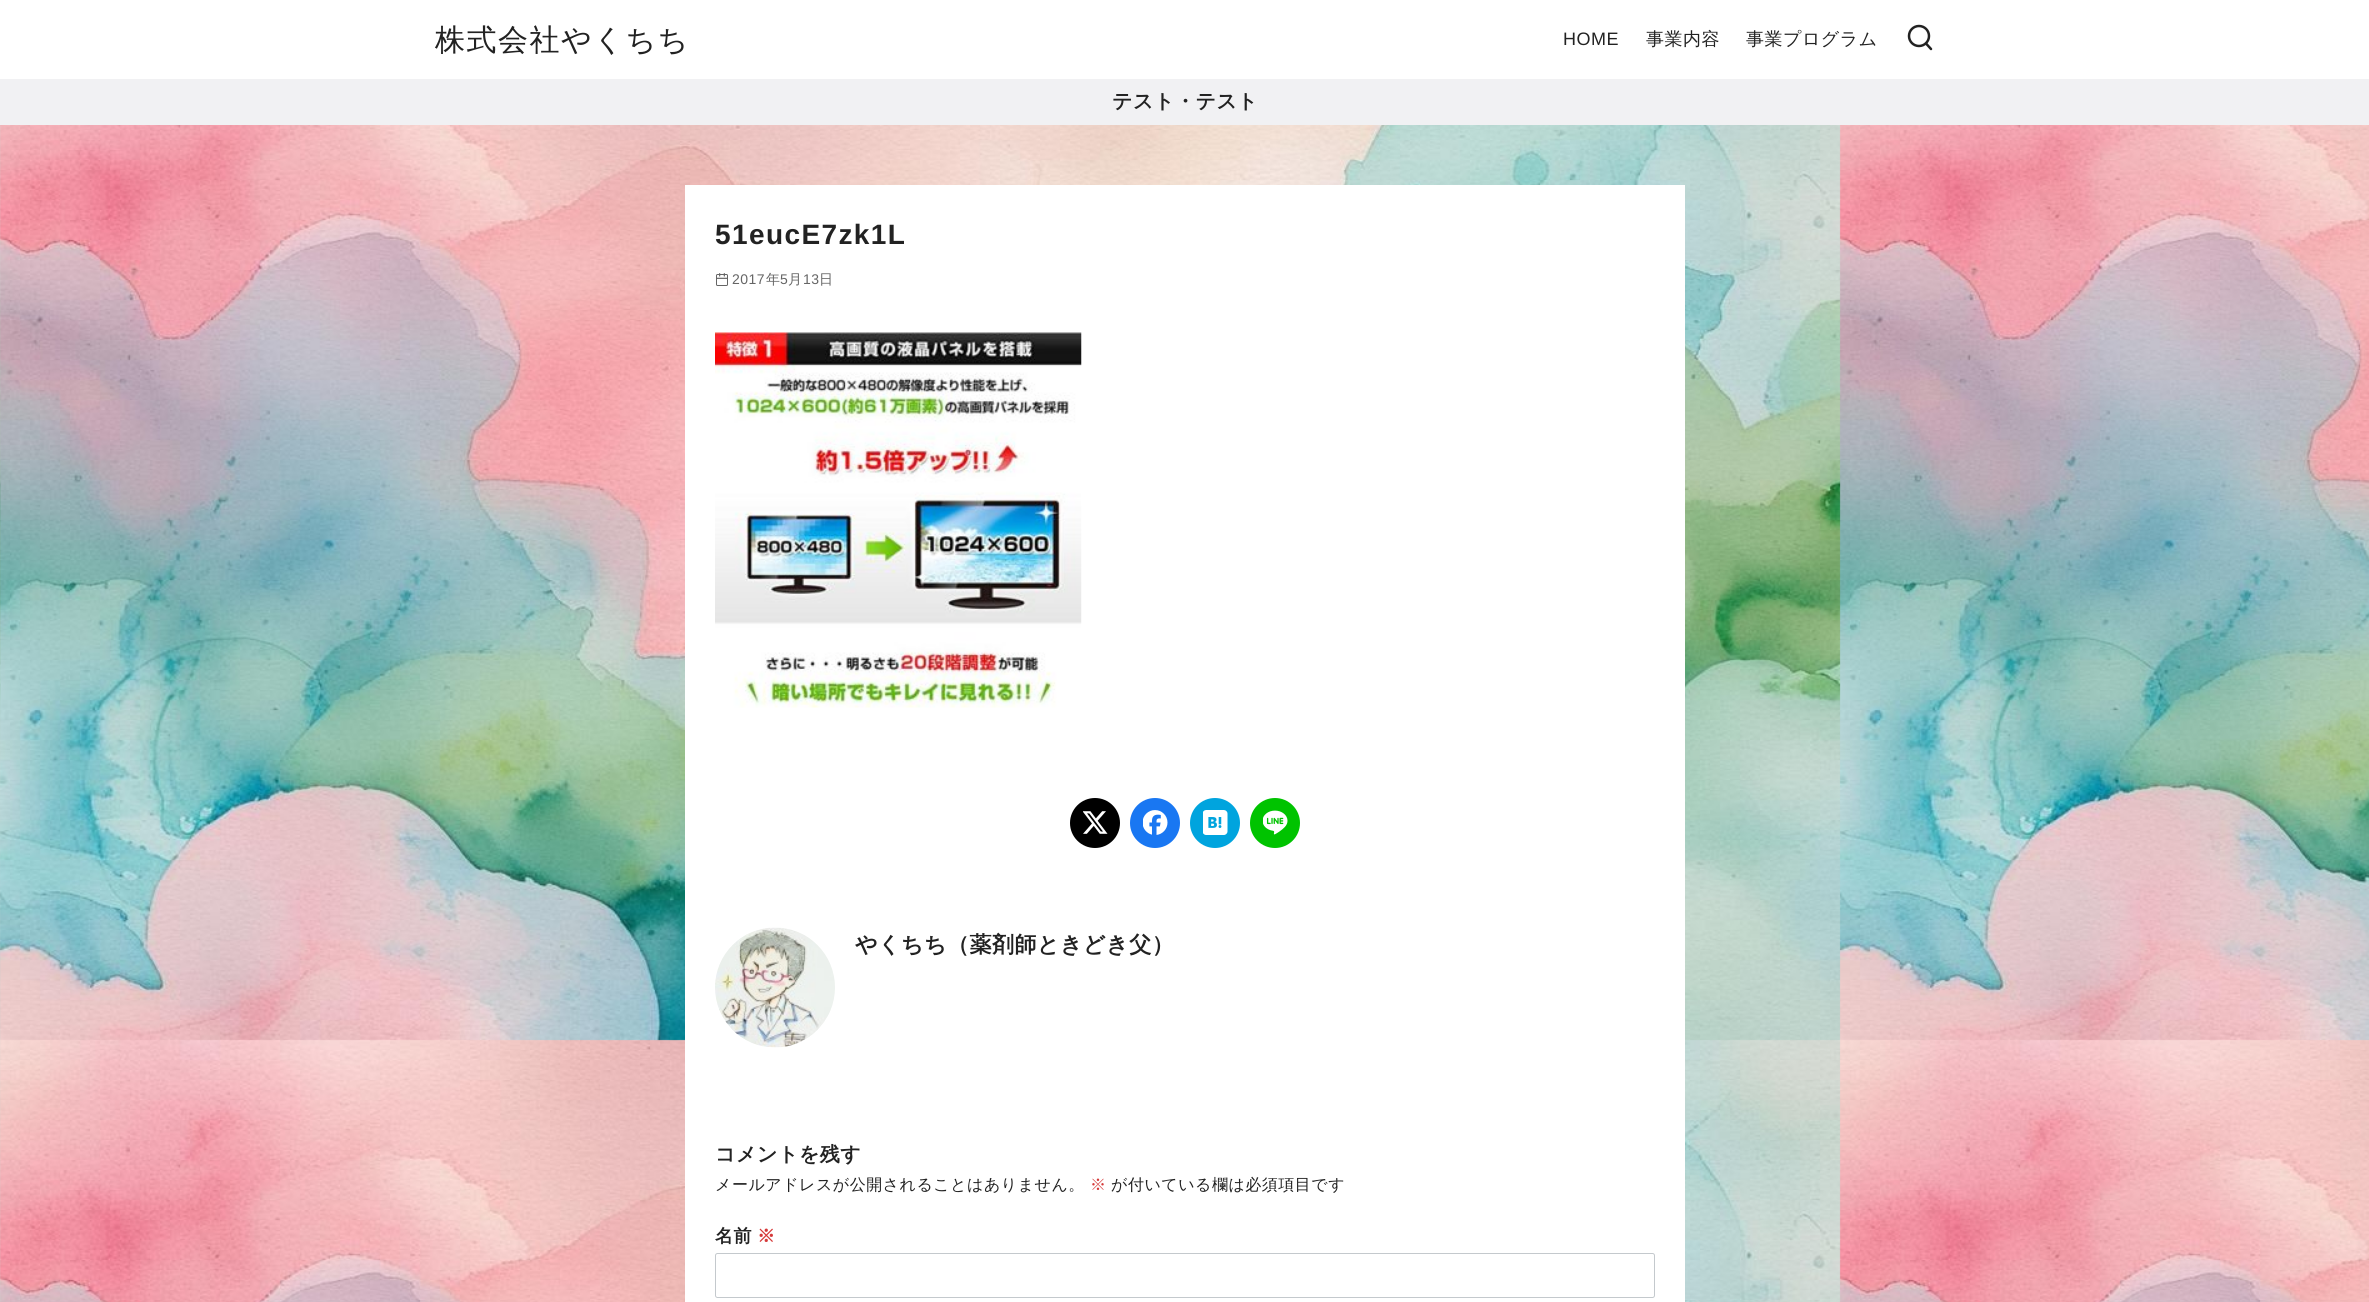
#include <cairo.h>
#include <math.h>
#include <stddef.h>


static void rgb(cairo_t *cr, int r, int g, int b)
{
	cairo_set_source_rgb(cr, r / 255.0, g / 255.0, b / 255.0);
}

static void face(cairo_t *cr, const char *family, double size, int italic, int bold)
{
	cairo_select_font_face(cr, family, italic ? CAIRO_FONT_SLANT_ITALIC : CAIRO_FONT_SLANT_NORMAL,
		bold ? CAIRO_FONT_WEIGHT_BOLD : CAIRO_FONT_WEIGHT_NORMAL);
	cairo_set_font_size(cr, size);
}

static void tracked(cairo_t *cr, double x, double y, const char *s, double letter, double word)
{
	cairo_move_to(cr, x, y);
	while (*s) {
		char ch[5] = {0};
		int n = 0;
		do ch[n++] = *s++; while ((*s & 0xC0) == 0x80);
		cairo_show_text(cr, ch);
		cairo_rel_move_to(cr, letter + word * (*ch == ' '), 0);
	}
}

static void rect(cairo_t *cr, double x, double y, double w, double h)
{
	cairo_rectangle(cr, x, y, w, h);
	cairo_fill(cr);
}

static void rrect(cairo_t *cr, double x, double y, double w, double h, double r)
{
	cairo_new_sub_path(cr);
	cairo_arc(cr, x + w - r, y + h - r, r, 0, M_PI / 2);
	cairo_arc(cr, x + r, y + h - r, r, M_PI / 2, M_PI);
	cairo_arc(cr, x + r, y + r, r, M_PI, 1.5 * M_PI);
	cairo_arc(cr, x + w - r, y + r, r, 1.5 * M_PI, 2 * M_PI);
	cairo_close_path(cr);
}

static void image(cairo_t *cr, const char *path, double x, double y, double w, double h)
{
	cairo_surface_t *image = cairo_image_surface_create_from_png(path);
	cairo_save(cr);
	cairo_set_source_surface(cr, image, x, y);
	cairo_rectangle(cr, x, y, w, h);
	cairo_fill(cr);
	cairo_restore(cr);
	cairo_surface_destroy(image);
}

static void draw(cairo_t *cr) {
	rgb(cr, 255, 255, 255);
	cairo_paint(cr);
	image(cr, "image0.png", 0, 125, 2369, 1177);
	face(cr, "WenQuanYi Zen Hei Medium", 30, 0, 0);
	rgb(cr, 34, 34, 34);
	tracked(cr, 435, 50, "株式会社やくちち", 1.5, 0);
	face(cr, "Liberation Sans", 18, 0, 0);
	tracked(cr, 1563, 45, "HOME", 0.5, 0);
	face(cr, "WenQuanYi Zen Hei Medium", 18, 0, 0);
	tracked(cr, 1646, 45, "事業内容", 0.5, 0);
	tracked(cr, 1746, 45, "事業プログラム", 0.5, 0);
	cairo_new_path(cr);
	cairo_arc(cr, 1919, 36, 10, 0, 2 * M_PI);
	cairo_set_line_width(cr, 2.5);
	cairo_stroke(cr);
	cairo_new_path(cr);
	cairo_move_to(cr, 1931, 49);
	cairo_line_to(cr, 1926, 43.5);
	cairo_set_line_cap(cr, CAIRO_LINE_CAP_ROUND);
	cairo_set_line_join(cr, CAIRO_LINE_JOIN_ROUND);
	cairo_stroke(cr);
	rgb(cr, 241, 241, 243);
	rect(cr, 0, 79, 2369, 46);
	face(cr, "WenQuanYi Zen Hei", 20, 0, 1);
	rgb(cr, 34, 34, 34);
	tracked(cr, 1112, 108, "テスト・テスト", 0.5, 0);
	rgb(cr, 255, 255, 255);
	rect(cr, 685, 185, 1000, 1117);
	face(cr, "Liberation Sans", 28, 0, 1);
	rgb(cr, 34, 34, 34);
	tracked(cr, 715, 244, "51eucE7zk1L", 1.4, 0);
	image(cr, "image1.png", 716, 273, 12, 13);
	face(cr, "Liberation Sans", 14, 0, 0);
	rgb(cr, 101, 101, 101);
	tracked(cr, 732, 284, "2017", 0.5, 0);
	face(cr, "WenQuanYi Zen Hei Medium", 14, 0, 0);
	tracked(cr, 766, 284, "年", 0.5, 0);
	face(cr, "Liberation Sans", 14, 0, 0);
	tracked(cr, 780, 284, "5", 0.5, 0);
	face(cr, "WenQuanYi Zen Hei Medium", 14, 0, 0);
	tracked(cr, 788, 284, "月", 0.5, 0);
	face(cr, "Liberation Sans", 14, 0, 0);
	tracked(cr, 803, 284, "13", 0.5, 0);
	face(cr, "WenQuanYi Zen Hei Medium", 14, 0, 0);
	tracked(cr, 819, 284, "日", 0.5, 0);
	image(cr, "image2.png", 715, 332, 367, 376);
	rgb(cr, 0, 0, 0);
	cairo_arc(cr, 1095, 823, 25, 0, 2 * M_PI);
	cairo_fill(cr);
	image(cr, "image3.png", 1083, 811, 25, 23);
	rgb(cr, 25, 119, 242);
	cairo_arc(cr, 1155, 823, 25, 0, 2 * M_PI);
	cairo_fill(cr);
	image(cr, "image4.png", 1143, 810, 25, 25);
	rgb(cr, 0, 164, 222);
	cairo_arc(cr, 1215, 823, 25, 0, 2 * M_PI);
	cairo_fill(cr);
	image(cr, "image5.png", 1203, 810, 25, 25);
	rgb(cr, 0, 195, 0);
	cairo_arc(cr, 1275, 823, 25, 0, 2 * M_PI);
	cairo_fill(cr);
	image(cr, "image6.png", 1263, 810, 25, 25);
	image(cr, "image7.png", 715, 927, 120, 121);
	face(cr, "WenQuanYi Zen Hei", 22, 0, 1);
	rgb(cr, 34, 34, 34);
	tracked(cr, 855, 952, "やくちち（薬剤師ときどき父）", 0.5, 0);
	face(cr, "WenQuanYi Zen Hei", 20, 0, 1);
	tracked(cr, 715, 1161, "コメントを残す", 0.5, 0);
	face(cr, "WenQuanYi Zen Hei Medium", 16, 0, 0);
	tracked(cr, 715, 1190, "メールアドレスが公開されることはありません。", 0.5, 0);
	rgb(cr, 213, 57, 57);
	tracked(cr, 1090, 1190, "※", 0.5, 0);
	rgb(cr, 34, 34, 34);
	tracked(cr, 1111, 1190, "が付いている欄は必須項目です", 0.5, 0);
	face(cr, "WenQuanYi Zen Hei", 18, 0, 1);
	tracked(cr, 715, 1242, "名前", 0.5, 0);
	rgb(cr, 213, 57, 57);
	tracked(cr, 757, 1242, "※", 0.5, 0);
	rrect(cr, 715.5, 1253.5, 939, 44, 2);
	rgb(cr, 196, 201, 205);
	cairo_set_line_width(cr, 1);
	cairo_set_line_cap(cr, CAIRO_LINE_CAP_BUTT);
	cairo_set_line_join(cr, CAIRO_LINE_JOIN_MITER);
	cairo_stroke(cr);
}

int main(void) {
	cairo_surface_t *surface = cairo_image_surface_create(CAIRO_FORMAT_RGB24, 2369, 1302);
	cairo_t *cr = cairo_create(surface);
	cairo_font_options_t *options = cairo_font_options_create();
	cairo_font_options_set_hint_metrics(options, CAIRO_HINT_METRICS_OFF);
	cairo_font_options_set_hint_style(options, CAIRO_HINT_STYLE_NONE);
	cairo_set_font_options(cr, options);
	cairo_set_miter_limit(cr, 4);
	draw(cr);
	cairo_surface_write_to_png(surface, "render.png");
	cairo_font_options_destroy(options);
	cairo_destroy(cr);
	cairo_surface_destroy(surface);
	return 0;
}
